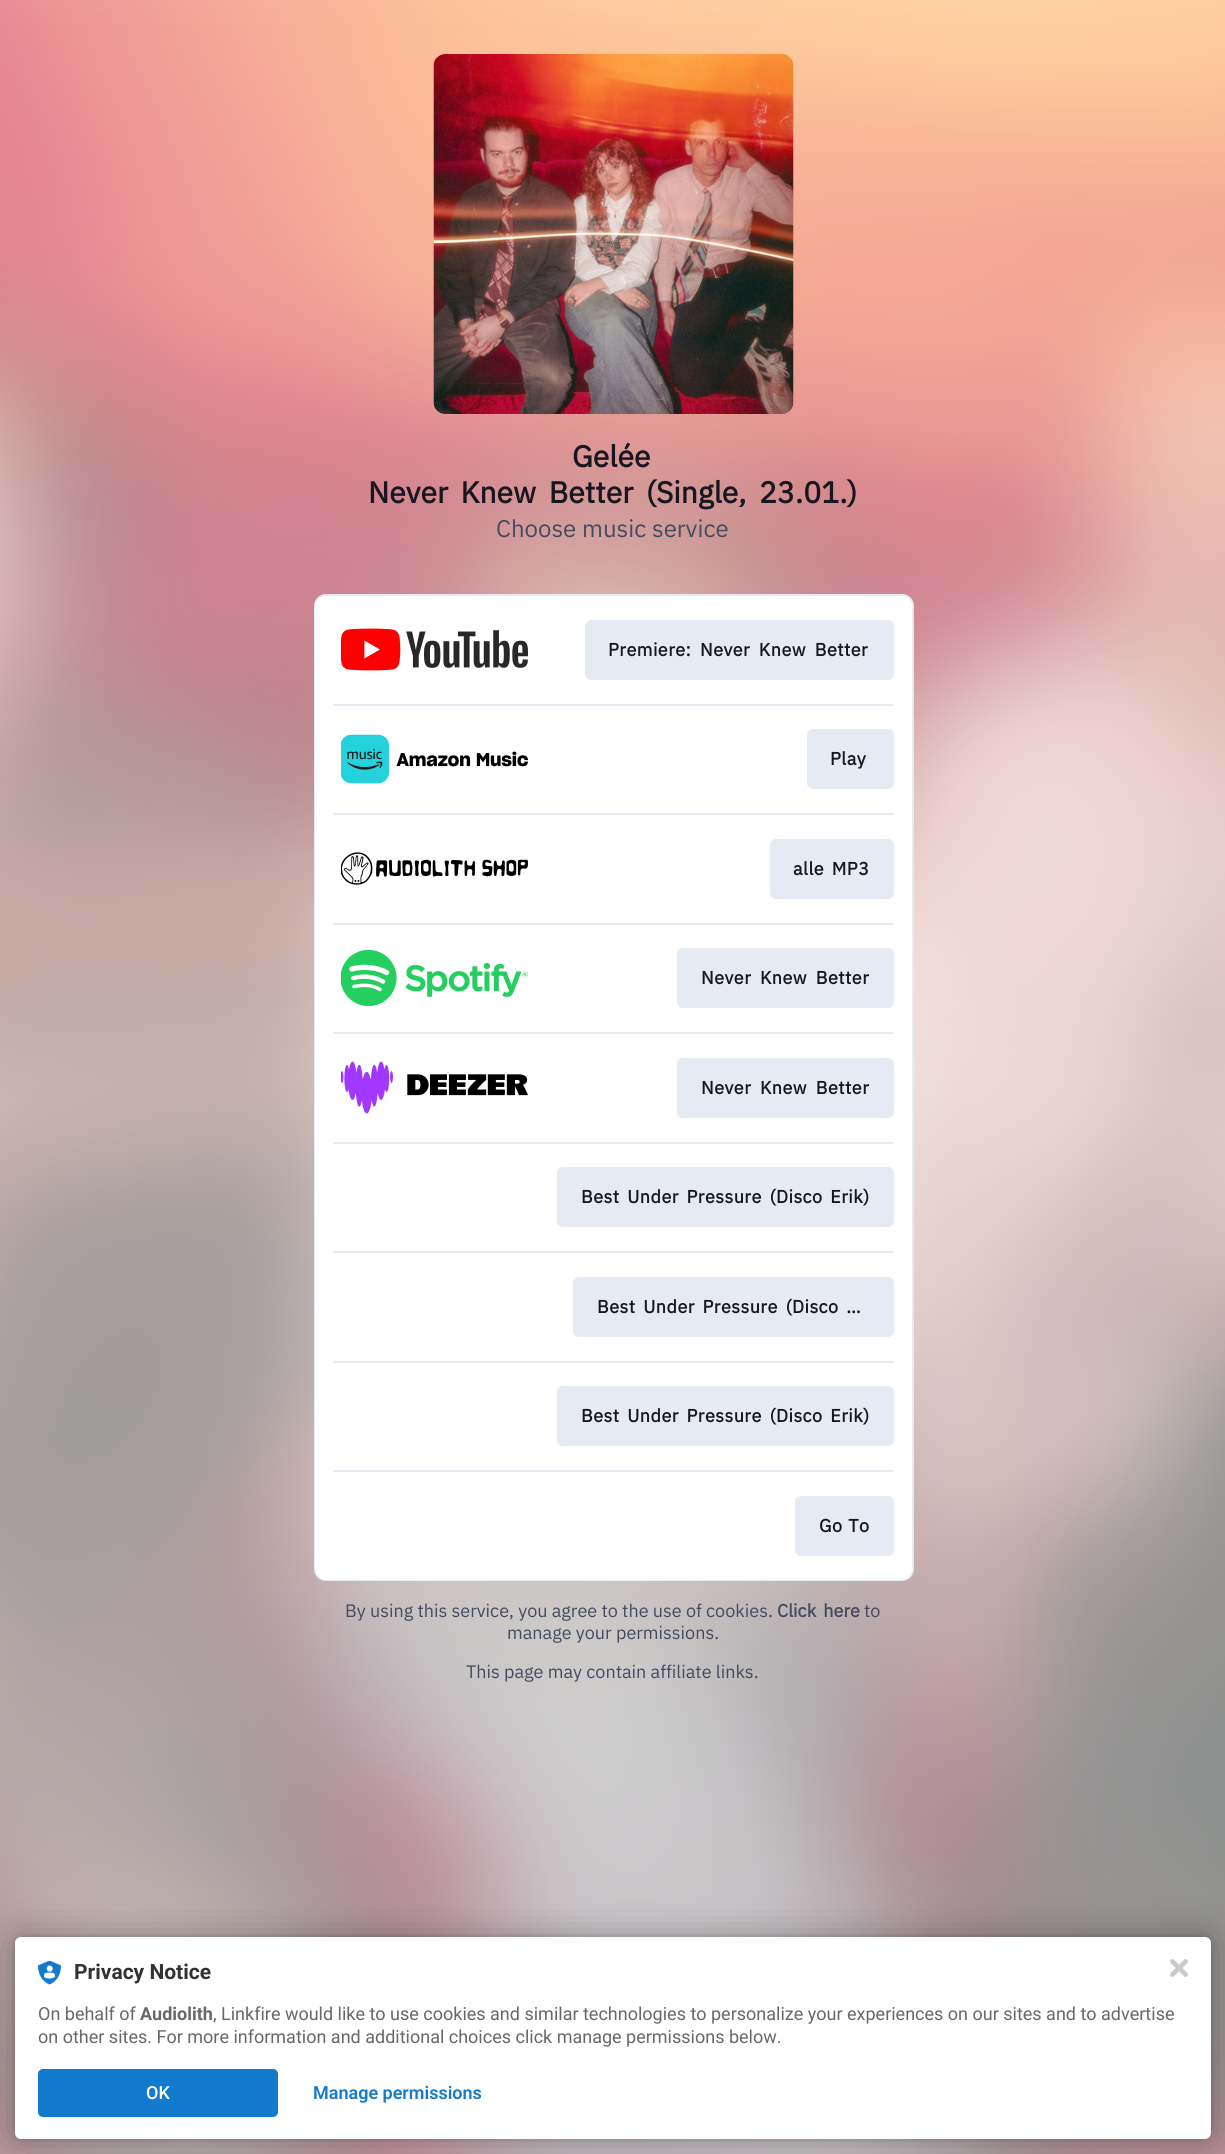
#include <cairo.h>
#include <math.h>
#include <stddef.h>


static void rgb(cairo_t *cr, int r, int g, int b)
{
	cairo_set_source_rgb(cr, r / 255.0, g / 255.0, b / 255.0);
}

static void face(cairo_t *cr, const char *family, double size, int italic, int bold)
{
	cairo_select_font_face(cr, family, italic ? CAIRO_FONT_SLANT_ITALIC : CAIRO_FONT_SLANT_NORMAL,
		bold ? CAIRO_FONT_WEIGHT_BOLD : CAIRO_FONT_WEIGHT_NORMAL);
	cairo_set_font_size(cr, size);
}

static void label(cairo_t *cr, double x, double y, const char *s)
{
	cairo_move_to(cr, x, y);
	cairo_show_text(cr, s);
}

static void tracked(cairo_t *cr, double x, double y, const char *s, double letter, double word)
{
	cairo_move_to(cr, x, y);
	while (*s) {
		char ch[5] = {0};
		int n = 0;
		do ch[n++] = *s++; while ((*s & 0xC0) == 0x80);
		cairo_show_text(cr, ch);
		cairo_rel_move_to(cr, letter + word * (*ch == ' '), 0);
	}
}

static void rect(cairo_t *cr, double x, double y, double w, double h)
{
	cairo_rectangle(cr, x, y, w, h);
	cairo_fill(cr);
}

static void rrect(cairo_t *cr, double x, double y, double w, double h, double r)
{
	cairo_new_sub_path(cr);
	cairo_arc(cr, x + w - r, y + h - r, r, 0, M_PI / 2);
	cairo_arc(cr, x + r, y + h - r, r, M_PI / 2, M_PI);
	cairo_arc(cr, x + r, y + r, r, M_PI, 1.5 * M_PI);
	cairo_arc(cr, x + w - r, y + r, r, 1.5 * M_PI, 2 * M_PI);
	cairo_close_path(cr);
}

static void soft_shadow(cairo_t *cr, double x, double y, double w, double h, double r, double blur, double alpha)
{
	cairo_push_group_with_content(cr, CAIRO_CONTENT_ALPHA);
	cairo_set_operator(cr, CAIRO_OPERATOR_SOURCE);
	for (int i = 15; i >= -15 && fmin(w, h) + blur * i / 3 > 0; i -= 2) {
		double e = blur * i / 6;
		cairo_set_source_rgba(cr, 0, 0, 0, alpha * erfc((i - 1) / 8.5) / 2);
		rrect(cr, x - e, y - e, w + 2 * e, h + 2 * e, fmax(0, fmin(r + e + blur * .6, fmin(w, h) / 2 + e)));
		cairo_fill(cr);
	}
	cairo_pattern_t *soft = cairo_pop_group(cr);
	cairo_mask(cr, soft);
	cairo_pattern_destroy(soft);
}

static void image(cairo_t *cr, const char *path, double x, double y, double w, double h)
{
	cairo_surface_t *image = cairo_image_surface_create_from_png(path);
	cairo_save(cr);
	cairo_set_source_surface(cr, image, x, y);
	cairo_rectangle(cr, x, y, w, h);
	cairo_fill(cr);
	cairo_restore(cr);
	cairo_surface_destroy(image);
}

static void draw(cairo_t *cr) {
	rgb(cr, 255, 255, 255);
	cairo_paint(cr);
	image(cr, "image0.png", 0, 0, 1225, 2154);
	image(cr, "image1.png", 433, 54, 361, 360);
	face(cr, "IBM Plex Sans", 30, 0, 1);
	rgb(cr, 24, 23, 33);
	label(cr, 572, 467, "Gelée");
	tracked(cr, 368, 503, "Never Knew Better (Single, 23.01.)", 0, 5.5);
	face(cr, "IBM Plex Sans", 24, 0, 0);
	rgb(cr, 69, 75, 95);
	label(cr, 496, 537, "Choose music service");
	rgb(cr, 255, 255, 255);
	rrect(cr, 315, 595, 598, 985, 11);
	cairo_fill_preserve(cr);
	rgb(cr, 230, 234, 242);
	cairo_stroke(cr);
	rgb(cr, 255, 255, 255);
	rrect(cr, 315, 596, 597, 984, 11);
	cairo_fill(cr);
	image(cr, "image2.png", 341, 628, 187, 43);
	rgb(cr, 230, 234, 242);
	rrect(cr, 585, 620, 309, 60, 6);
	cairo_fill(cr);
	face(cr, "IBM Plex Sans", 18, 0, 1);
	rgb(cr, 24, 23, 33);
	tracked(cr, 608, 656, "Premiere: Never Knew Better", 0.45, 4);
	rgb(cr, 230, 234, 242);
	rect(cr, 333, 704, 561, 2);
	image(cr, "image3.png", 341, 734, 187, 50);
	rrect(cr, 807, 729, 87, 60, 6);
	cairo_fill(cr);
	rgb(cr, 24, 23, 33);
	tracked(cr, 830, 765, "Play", 0.45, 0);
	rgb(cr, 230, 234, 242);
	rect(cr, 333, 813, 561, 2);
	image(cr, "image4.png", 341, 852, 187, 33);
	rrect(cr, 770, 839, 124, 60, 6);
	cairo_fill(cr);
	rgb(cr, 24, 23, 33);
	tracked(cr, 793, 875, "alle MP3", 0.45, 3);
	rgb(cr, 230, 234, 242);
	rect(cr, 333, 923, 561, 2);
	image(cr, "image5.png", 341, 949, 187, 58);
	rrect(cr, 677, 948, 217, 60, 6);
	cairo_fill(cr);
	rgb(cr, 24, 23, 33);
	tracked(cr, 701, 984, "Never Knew Better", 0.45, 4);
	rgb(cr, 230, 234, 242);
	rect(cr, 333, 1032, 561, 2);
	image(cr, "image6.png", 341, 1061, 187, 53);
	rrect(cr, 677, 1058, 217, 60, 6);
	cairo_fill(cr);
	rgb(cr, 24, 23, 33);
	tracked(cr, 701, 1094, "Never Knew Better", 0.45, 4);
	rgb(cr, 230, 234, 242);
	rect(cr, 333, 1142, 561, 2);
	rrect(cr, 557, 1167, 337, 60, 6);
	cairo_fill(cr);
	rgb(cr, 24, 23, 33);
	tracked(cr, 581, 1203, "Best Under Pressure (Disco Erik)", 0.45, 3);
	rgb(cr, 230, 234, 242);
	rect(cr, 333, 1251, 561, 2);
	rrect(cr, 573, 1277, 321, 60, 6);
	cairo_fill(cr);
	rgb(cr, 24, 23, 33);
	tracked(cr, 597, 1313, "Best Under Pressure (Disco …", 0.45, 3);
	rgb(cr, 230, 234, 242);
	rect(cr, 333, 1361, 561, 2);
	rrect(cr, 557, 1386, 337, 60, 6);
	cairo_fill(cr);
	rgb(cr, 24, 23, 33);
	tracked(cr, 581, 1422, "Best Under Pressure (Disco Erik)", 0.45, 3);
	rgb(cr, 230, 234, 242);
	rect(cr, 333, 1470, 561, 2);
	rrect(cr, 795, 1496, 99, 60, 6);
	cairo_fill(cr);
	rgb(cr, 24, 23, 33);
	tracked(cr, 819, 1532, "Go To", 0.45, 1);
	face(cr, "IBM Plex Sans", 18, 0, 0);
	rgb(cr, 69, 75, 95);
	label(cr, 345, 1617, "By using this service, you agree to the use of cookies.");
	face(cr, "IBM Plex Sans", 18, 0, 1);
	tracked(cr, 777, 1617, "Click here", 0, 3);
	face(cr, "IBM Plex Sans", 18, 0, 0);
	label(cr, 864, 1617, "to");
	label(cr, 507, 1639, "manage your permissions.");
	label(cr, 466, 1678, "This page may contain affiliate links.");
	rgb(cr, 0, 0, 0);
	soft_shadow(cr, 15, 1937, 1196, 202, 6, 3, 0.12);
	soft_shadow(cr, 15, 1937, 1196, 202, 6, 18, 0.3);
	rgb(cr, 255, 255, 255);
	rrect(cr, 15, 1937, 1196, 202, 6);
	cairo_fill(cr);
	image(cr, "image7.png", 38, 1961, 23, 24);
	face(cr, "Roboto", 21, 0, 1);
	rgb(cr, 50, 50, 50);
	label(cr, 74, 1979, "Privacy Notice");
	face(cr, "Roboto", 18, 0, 0);
	rgb(cr, 104, 104, 104);
	label(cr, 38, 2020, "On behalf of");
	face(cr, "Roboto", 18, 0, 1);
	label(cr, 140, 2020, "Audiolith");
	face(cr, "Roboto", 18, 0, 0);
	label(cr, 213, 2020, ", Linkfire would like to use cookies and similar technologies to personalize your experiences on our sites and to advertise");
	label(cr, 38, 2043, "on other sites. For more information and additional choices click manage permissions below.");
	rgb(cr, 19, 123, 207);
	rrect(cr, 38, 2069, 240, 48, 5);
	cairo_fill(cr);
	face(cr, "Roboto Medium", 18, 0, 0);
	rgb(cr, 255, 255, 255);
	label(cr, 146, 2099, "OK");
	face(cr, "Roboto SemiBold", 18, 0, 0);
	rgb(cr, 19, 123, 207);
	label(cr, 313, 2099, "Manage permissions");
	image(cr, "image8.png", 1170, 1959, 18, 18);
}

int main(void) {
	cairo_surface_t *surface = cairo_image_surface_create(CAIRO_FORMAT_RGB24, 1225, 2154);
	cairo_t *cr = cairo_create(surface);
	cairo_font_options_t *options = cairo_font_options_create();
	cairo_font_options_set_hint_metrics(options, CAIRO_HINT_METRICS_OFF);
	cairo_font_options_set_hint_style(options, CAIRO_HINT_STYLE_NONE);
	cairo_set_font_options(cr, options);
	cairo_set_miter_limit(cr, 4);
	draw(cr);
	cairo_surface_write_to_png(surface, "render.png");
	cairo_font_options_destroy(options);
	cairo_destroy(cr);
	cairo_surface_destroy(surface);
	return 0;
}
